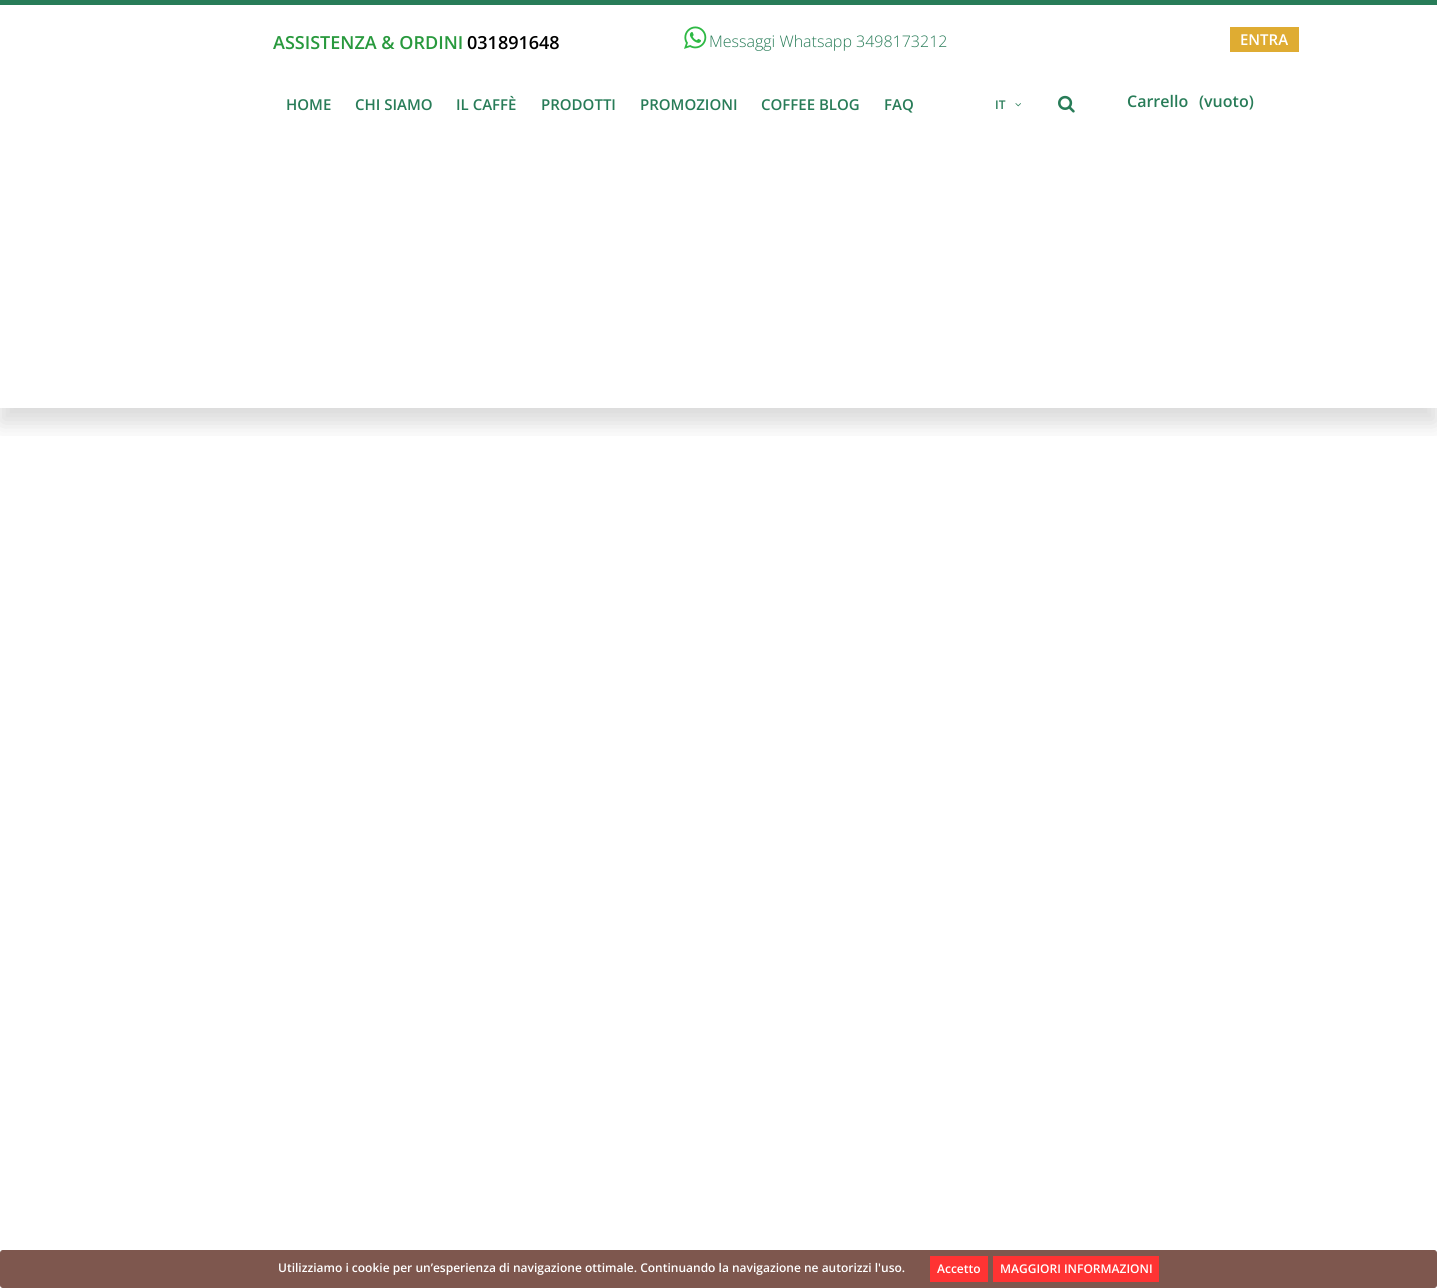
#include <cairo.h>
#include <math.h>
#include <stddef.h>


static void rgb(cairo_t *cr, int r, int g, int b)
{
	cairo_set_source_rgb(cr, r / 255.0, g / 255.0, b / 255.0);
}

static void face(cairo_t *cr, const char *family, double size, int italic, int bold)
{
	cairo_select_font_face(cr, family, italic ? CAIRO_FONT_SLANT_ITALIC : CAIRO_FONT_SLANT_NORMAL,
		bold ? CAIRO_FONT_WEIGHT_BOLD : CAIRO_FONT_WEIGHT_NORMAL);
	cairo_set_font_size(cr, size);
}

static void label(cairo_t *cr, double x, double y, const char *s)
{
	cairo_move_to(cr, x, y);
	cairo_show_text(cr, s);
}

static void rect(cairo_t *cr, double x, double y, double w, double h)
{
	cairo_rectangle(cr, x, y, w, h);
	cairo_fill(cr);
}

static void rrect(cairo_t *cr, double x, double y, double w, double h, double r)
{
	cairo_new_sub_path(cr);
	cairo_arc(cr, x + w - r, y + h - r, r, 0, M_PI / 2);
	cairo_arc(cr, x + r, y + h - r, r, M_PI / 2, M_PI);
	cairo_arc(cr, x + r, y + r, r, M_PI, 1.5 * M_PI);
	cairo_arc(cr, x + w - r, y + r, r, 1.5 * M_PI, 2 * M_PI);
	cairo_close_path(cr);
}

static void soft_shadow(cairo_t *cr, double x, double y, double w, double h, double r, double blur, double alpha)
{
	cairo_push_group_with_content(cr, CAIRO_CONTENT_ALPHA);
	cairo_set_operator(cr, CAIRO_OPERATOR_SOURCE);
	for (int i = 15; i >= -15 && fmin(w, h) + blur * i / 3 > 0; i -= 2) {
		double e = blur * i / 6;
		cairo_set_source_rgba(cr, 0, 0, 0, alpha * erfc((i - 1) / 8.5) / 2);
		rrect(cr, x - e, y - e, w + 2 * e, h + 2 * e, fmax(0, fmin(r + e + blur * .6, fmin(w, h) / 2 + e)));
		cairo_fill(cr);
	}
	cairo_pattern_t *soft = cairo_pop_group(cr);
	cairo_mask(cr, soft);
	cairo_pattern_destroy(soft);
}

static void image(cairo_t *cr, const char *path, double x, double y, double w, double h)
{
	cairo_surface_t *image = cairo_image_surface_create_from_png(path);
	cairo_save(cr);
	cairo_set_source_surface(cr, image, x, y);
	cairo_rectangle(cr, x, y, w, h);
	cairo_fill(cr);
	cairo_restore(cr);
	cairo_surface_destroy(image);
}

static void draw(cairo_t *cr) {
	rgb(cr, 255, 255, 255);
	cairo_paint(cr);
	cairo_save(cr);
	cairo_rectangle(cr, 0, 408, 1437, 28);
	cairo_clip(cr);
	rgb(cr, 0, 0, 0);
	soft_shadow(cr, 0, 154, 1437, 269, 0, 11.5, 0.15);
	cairo_restore(cr);
	rgb(cr, 255, 255, 255);
	rect(cr, 8, 137, 1421, 2);
	rgb(cr, 40, 124, 88);
	rect(cr, 0, 0, 1437, 5);
	face(cr, "Open Sans SemiBold", 18, 0, 0);
	rgb(cr, 40, 153, 61);
	label(cr, 273, 49, "ASSISTENZA & ORDINI");
	rgb(cr, 0, 0, 0);
	label(cr, 467, 49, "031891648");
	image(cr, "image0.png", 684, 26, 23, 23);
	face(cr, "Open Sans Light", 16, 0, 0);
	rgb(cr, 40, 124, 88);
	label(cr, 709, 47, "Messaggi Whatsapp 3498173212");
	rgb(cr, 223, 172, 50);
	rect(cr, 1230, 27, 69, 25);
	face(cr, "Open Sans SemiBold", 15, 0, 0);
	rgb(cr, 255, 255, 255);
	label(cr, 1240, 45, "ENTRA");
	rgb(cr, 40, 124, 88);
	label(cr, 286, 110, "HOME");
	label(cr, 355, 110, "CHI SIAMO");
	label(cr, 456, 110, "IL CAFFÈ");
	label(cr, 541, 110, "PRODOTTI");
	label(cr, 640, 110, "PROMOZIONI");
	label(cr, 761, 110, "COFFEE BLOG");
	label(cr, 884, 110, "FAQ");
	face(cr, "Open Sans SemiBold", 12, 0, 0);
	label(cr, 995, 109, "IT");
	image(cr, "image1.png", 1015, 103, 6, 4);
	image(cr, "image2.png", 1058, 95, 17, 18);
	face(cr, "Open Sans SemiBold", 16, 0, 0);
	label(cr, 1127, 107, "Carrello");
	label(cr, 1199, 107, "(vuoto)");
	rgb(cr, 126, 87, 78);
	rrect(cr, 0.5, 1250.5, 1436, 37, 2.5);
	cairo_fill_preserve(cr);
	cairo_set_line_width(cr, 1);
	cairo_stroke(cr);
	face(cr, "Open Sans SemiBold", 12, 0, 0);
	rgb(cr, 255, 255, 255);
	label(cr, 278, 1272, "Utilizziamo i cookie per un’esperienza di navigazione ottimale. Continuando la navigazione ne autorizzi l'uso.");
	rgb(cr, 255, 51, 51);
	rect(cr, 930, 1256, 58, 26);
	rgb(cr, 255, 255, 255);
	label(cr, 937, 1273, "Accetto");
	rgb(cr, 255, 51, 51);
	rect(cr, 993, 1256, 166, 26);
	rgb(cr, 255, 255, 255);
	label(cr, 1000, 1273, "MAGGIORI INFORMAZIONI");
}

int main(void) {
	cairo_surface_t *surface = cairo_image_surface_create(CAIRO_FORMAT_RGB24, 1437, 1288);
	cairo_t *cr = cairo_create(surface);
	cairo_font_options_t *options = cairo_font_options_create();
	cairo_font_options_set_hint_metrics(options, CAIRO_HINT_METRICS_OFF);
	cairo_font_options_set_hint_style(options, CAIRO_HINT_STYLE_NONE);
	cairo_set_font_options(cr, options);
	cairo_set_miter_limit(cr, 4);
	draw(cr);
	cairo_surface_write_to_png(surface, "render.png");
	cairo_font_options_destroy(options);
	cairo_destroy(cr);
	cairo_surface_destroy(surface);
	return 0;
}
